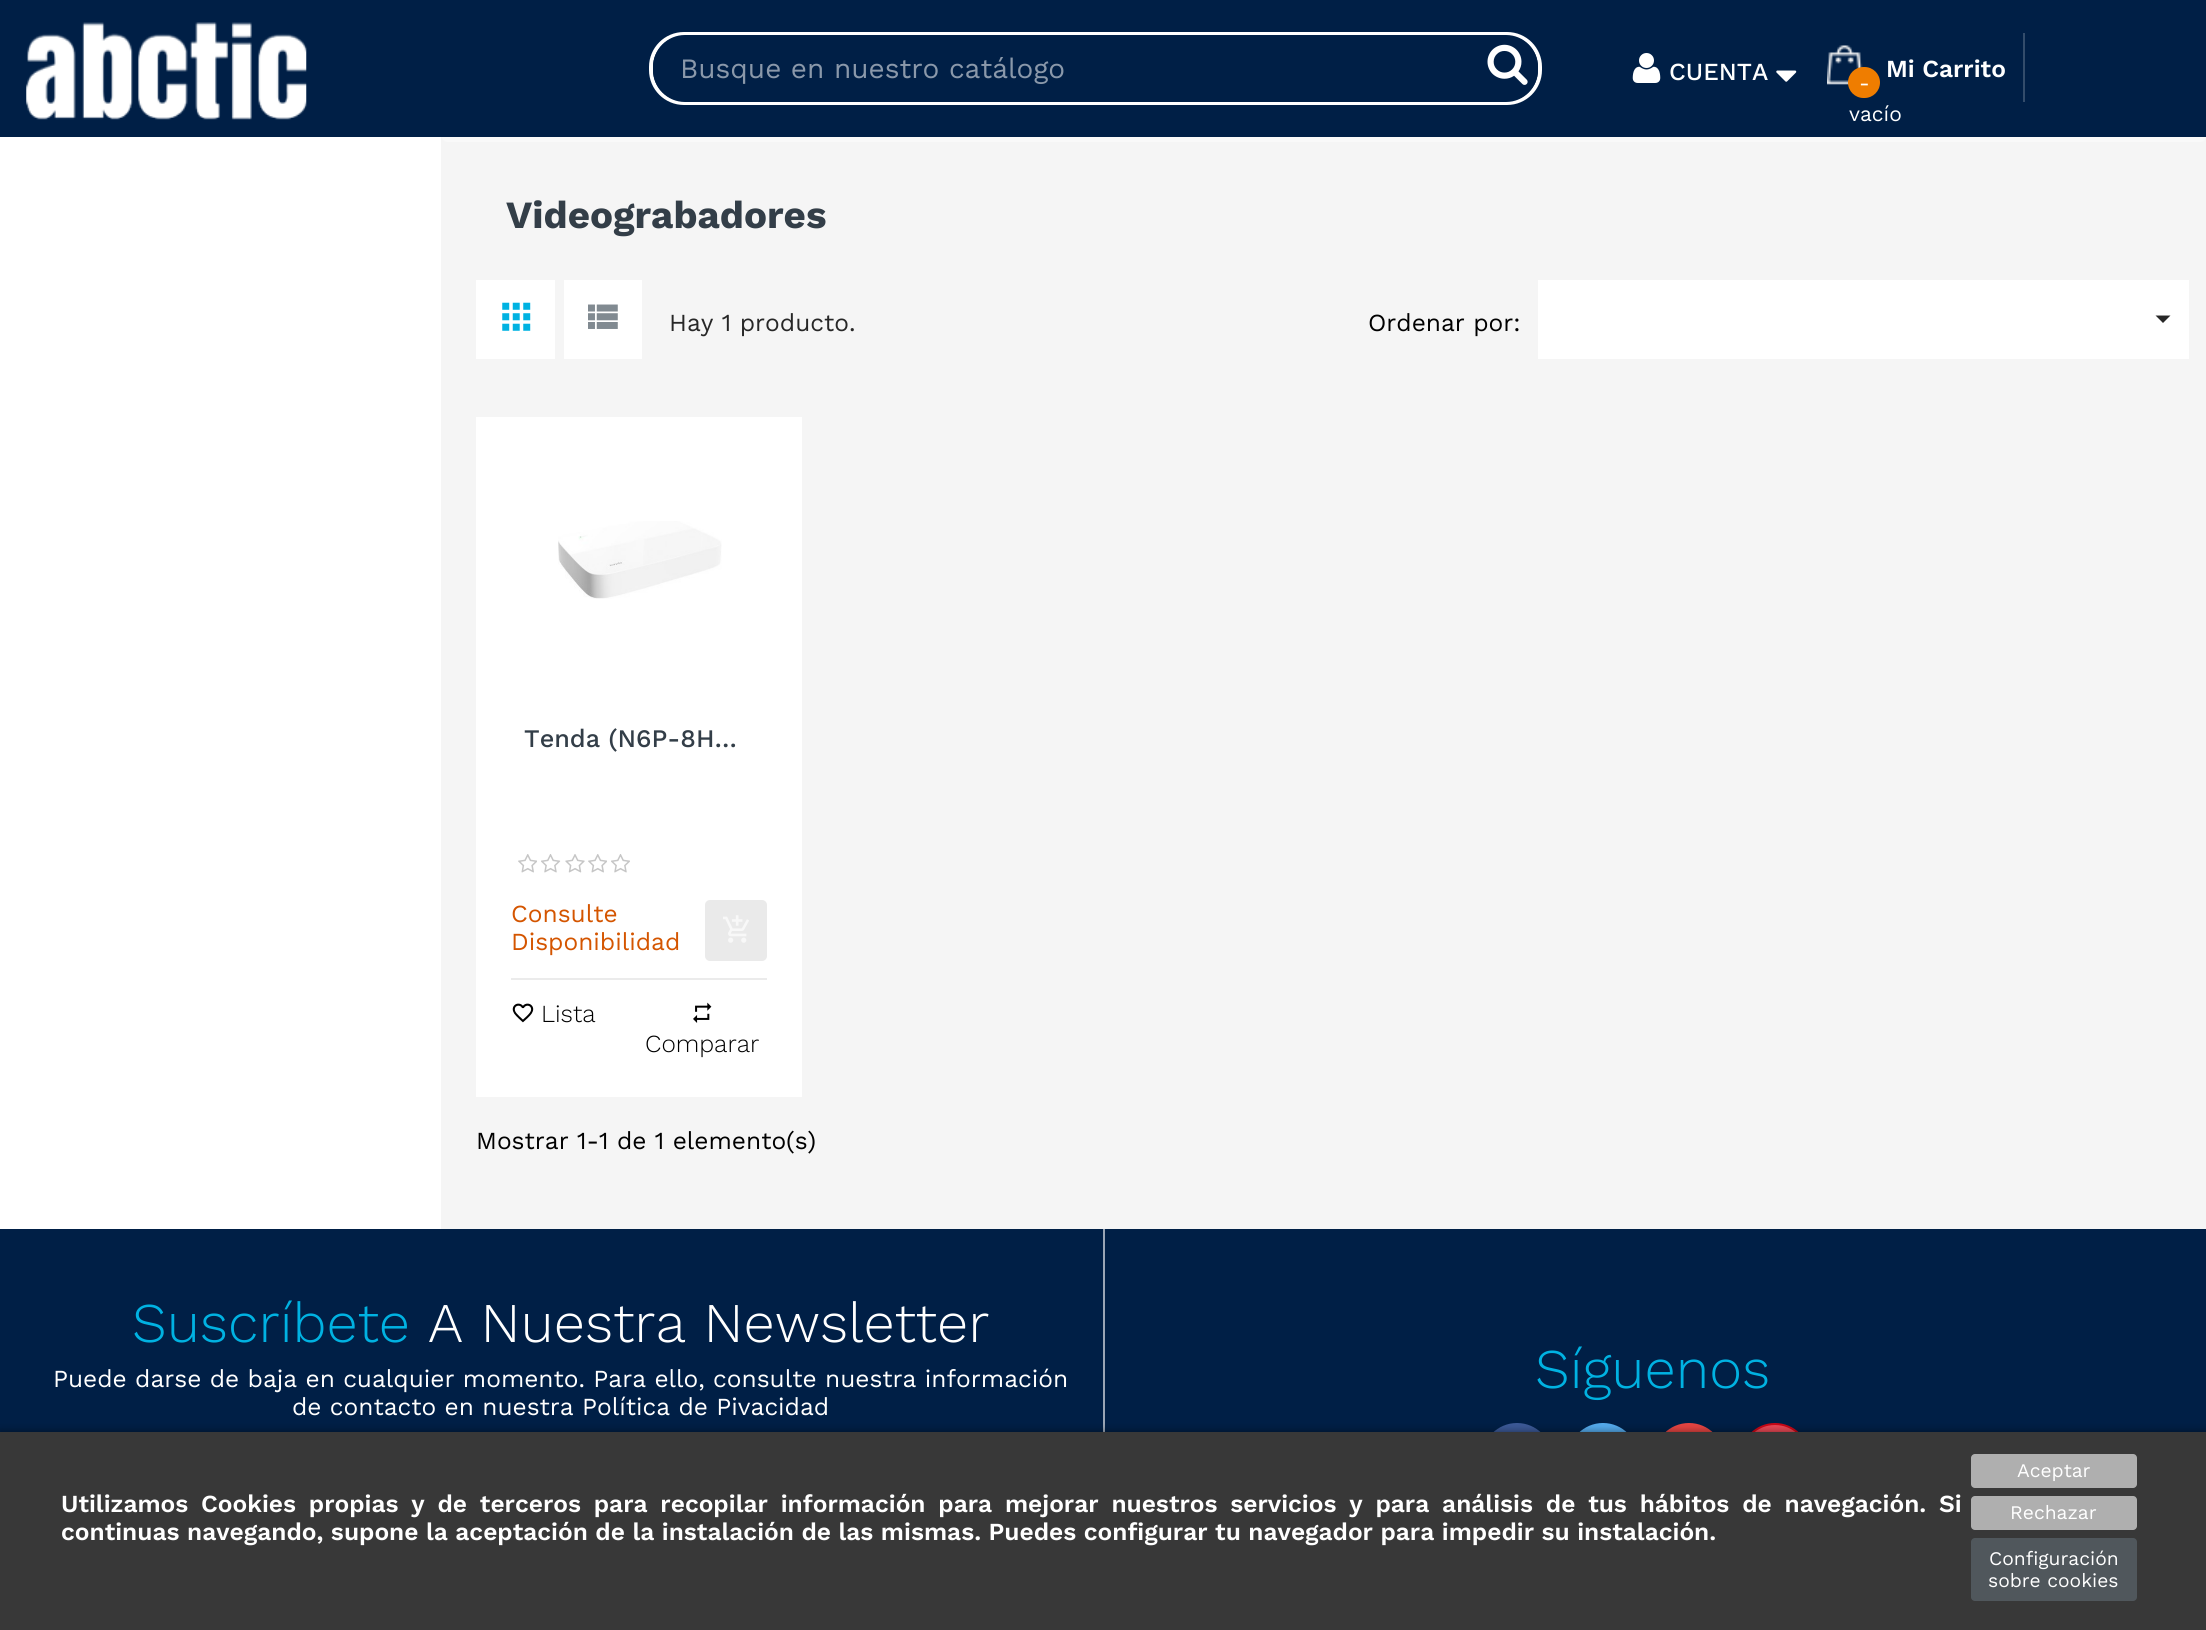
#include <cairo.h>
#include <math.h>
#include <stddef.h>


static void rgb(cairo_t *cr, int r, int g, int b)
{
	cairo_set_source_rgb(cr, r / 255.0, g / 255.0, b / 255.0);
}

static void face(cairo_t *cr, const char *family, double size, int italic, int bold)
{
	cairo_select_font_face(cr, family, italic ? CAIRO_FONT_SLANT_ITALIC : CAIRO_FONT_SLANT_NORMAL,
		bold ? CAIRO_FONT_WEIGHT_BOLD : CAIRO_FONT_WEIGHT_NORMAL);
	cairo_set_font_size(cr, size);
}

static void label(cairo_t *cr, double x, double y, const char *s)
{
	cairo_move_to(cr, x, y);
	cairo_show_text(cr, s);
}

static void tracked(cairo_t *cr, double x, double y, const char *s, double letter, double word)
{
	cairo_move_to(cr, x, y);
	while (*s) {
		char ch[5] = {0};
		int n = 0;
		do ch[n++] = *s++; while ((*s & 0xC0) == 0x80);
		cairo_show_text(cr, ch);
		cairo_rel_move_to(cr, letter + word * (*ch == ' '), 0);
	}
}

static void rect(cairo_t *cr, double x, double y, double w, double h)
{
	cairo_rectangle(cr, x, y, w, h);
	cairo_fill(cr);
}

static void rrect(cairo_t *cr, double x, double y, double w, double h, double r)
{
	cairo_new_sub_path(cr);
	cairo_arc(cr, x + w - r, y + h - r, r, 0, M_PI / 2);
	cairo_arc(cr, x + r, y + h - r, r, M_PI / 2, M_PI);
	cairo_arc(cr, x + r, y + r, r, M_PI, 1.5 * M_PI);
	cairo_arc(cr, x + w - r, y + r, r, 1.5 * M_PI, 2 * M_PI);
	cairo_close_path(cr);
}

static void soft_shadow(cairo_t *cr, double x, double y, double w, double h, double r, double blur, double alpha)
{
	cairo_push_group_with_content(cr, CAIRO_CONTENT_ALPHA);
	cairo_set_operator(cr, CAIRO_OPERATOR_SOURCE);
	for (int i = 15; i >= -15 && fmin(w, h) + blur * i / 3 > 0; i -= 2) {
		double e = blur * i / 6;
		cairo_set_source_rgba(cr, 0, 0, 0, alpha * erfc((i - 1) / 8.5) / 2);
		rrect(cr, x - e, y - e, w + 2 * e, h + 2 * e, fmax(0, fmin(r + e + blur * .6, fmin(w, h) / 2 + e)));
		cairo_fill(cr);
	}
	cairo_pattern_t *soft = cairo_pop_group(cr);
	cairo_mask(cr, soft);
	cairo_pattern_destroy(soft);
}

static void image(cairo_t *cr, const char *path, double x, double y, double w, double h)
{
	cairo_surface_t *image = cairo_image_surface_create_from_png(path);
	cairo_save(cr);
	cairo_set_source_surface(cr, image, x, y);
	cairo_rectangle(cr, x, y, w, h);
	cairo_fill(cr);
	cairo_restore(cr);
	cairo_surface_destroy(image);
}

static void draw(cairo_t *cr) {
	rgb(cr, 255, 255, 255);
	cairo_paint(cr);
	rgb(cr, 245, 245, 245);
	rect(cr, 441, 137, 1765, 1092);
	rgb(cr, 249, 249, 249);
	rrect(cr, 441, 54, 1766, 88, 7);
	cairo_fill(cr);
	rgb(cr, 0, 31, 70);
	rect(cr, 0, 0, 2206, 137);
	image(cr, "image0.png", 26, 22, 281, 98);
	rrect(cr, 651, 34, 889, 69, 33);
	rgb(cr, 255, 255, 255);
	cairo_set_line_width(cr, 4);
	cairo_stroke(cr);
	rgb(cr, 0, 31, 70);
	rrect(cr, 653, 35, 885, 67, 32);
	cairo_fill(cr);
	face(cr, "Work Sans", 28, 0, 0);
	rgb(cr, 138, 152, 170);
	label(cr, 680, 78, "Busque en nuestro catálogo");
	image(cr, "image1.png", 1487, 44, 41, 41);
	image(cr, "image2.png", 1632, 53, 29, 30);
	face(cr, "Work Sans Medium", 24.5, 0, 0);
	rgb(cr, 255, 255, 255);
	label(cr, 1669, 80, "CUENTA");
	image(cr, "image3.png", 1776, 70, 21, 12);
	rgb(cr, 51, 76, 107);
	rect(cr, 2023, 33, 2, 69);
	image(cr, "image4.png", 1827, 45, 36, 40);
	face(cr, "Work Sans SemiBold", 24.5, 0, 0);
	rgb(cr, 255, 255, 255);
	label(cr, 1886, 77, "Mi Carrito");
	rgb(cr, 239, 125, 0);
	rrect(cr, 1848, 67, 32, 31, 15.5);
	cairo_fill(cr);
	face(cr, "Work Sans", 21, 0, 0);
	rgb(cr, 255, 255, 255);
	label(cr, 1859, 90, "-");
	label(cr, 1849, 121, "vacío");
	face(cr, "Work Sans", 38.5, 0, 1);
	rgb(cr, 51, 62, 72);
	label(cr, 506, 228, "Videograbadores");
	rgb(cr, 255, 255, 255);
	rect(cr, 476, 280, 79, 79);
	image(cr, "image5.png", 502, 302, 29, 29);
	rect(cr, 564, 280, 78, 79);
	image(cr, "image6.png", 588, 304, 30, 25);
	face(cr, "Work Sans", 24.5, 0, 0);
	rgb(cr, 39, 39, 39);
	label(cr, 669, 331, "Hay 1 producto.");
	rgb(cr, 0, 0, 0);
	label(cr, 1368, 331, "Ordenar por:");
	rgb(cr, 255, 255, 255);
	rect(cr, 1538, 280, 651, 79);
	rgb(cr, 39, 39, 39);
	cairo_new_path(cr);
	cairo_move_to(cr, 2155.5, 315.5);
	cairo_line_to(cr, 2170.5, 315.5);
	cairo_line_to(cr, 2163, 323);
	cairo_close_path(cr);
	cairo_fill(cr);
	rgb(cr, 255, 255, 255);
	rect(cr, 476, 417, 326, 680);
	image(cr, "image7.png", 558, 521, 164, 78);
	face(cr, "Work Sans Medium", 25.25, 0, 0);
	rgb(cr, 51, 62, 72);
	label(cr, 524, 747, "Tenda (N6P-8H…");
	image(cr, "image8.png", 518, 854, 19, 19);
	image(cr, "image9.png", 541, 854, 20, 19);
	image(cr, "image10.png", 565, 854, 20, 19);
	image(cr, "image8.png", 588, 854, 19, 19);
	image(cr, "image11.png", 611, 854, 19, 19);
	face(cr, "Work Sans", 24.5, 0, 0);
	rgb(cr, 212, 85, 0);
	label(cr, 511, 922, "Consulte");
	label(cr, 511, 950, "Disponibilidad");
	rgb(cr, 234, 234, 234);
	rrect(cr, 705, 900, 62, 61, 5);
	cairo_fill(cr);
	image(cr, "image12.png", 723, 915, 26, 28);
	rgb(cr, 235, 235, 235);
	rect(cr, 511, 978, 256, 2);
	image(cr, "image13.png", 512, 1003, 22, 20);
	face(cr, "Work Sans Light", 24.5, 0, 0);
	rgb(cr, 0, 0, 0);
	label(cr, 541, 1022, "Lista");
	image(cr, "image14.png", 693, 1002, 19, 21);
	label(cr, 645, 1052, "Comparar");
	face(cr, "Work Sans", 24.5, 0, 0);
	label(cr, 476, 1149, "Mostrar 1-1 de 1 elemento(s)");
	rgb(cr, 0, 31, 70);
	rect(cr, 0, 1229, 2206, 203);
	face(cr, "Work Sans Light", 56, 0, 0);
	rgb(cr, 0, 178, 226);
	label(cr, 132, 1342, "Suscríbete");
	rgb(cr, 255, 255, 255);
	label(cr, 428, 1342, "A Nuestra Newsletter");
	face(cr, "Work Sans", 24.5, 0, 0);
	label(cr, 53, 1387, "Puede darse de baja en cualquier momento. Para ello, consulte nuestra información");
	label(cr, 292, 1415, "de contacto en nuestra Política de Pivacidad");
	rgb(cr, 153, 165, 181);
	rect(cr, 1103, 1229, 2, 203);
	face(cr, "Work Sans Light", 56, 0, 0);
	rgb(cr, 0, 178, 226);
	label(cr, 1535, 1388, "Síguenos");
	rgb(cr, 60, 90, 152);
	cairo_new_path(cr);
	cairo_arc(cr, 1517, 1458, 34, 0, 2 * M_PI);
	cairo_fill_preserve(cr);
	cairo_set_line_width(cr, 2);
	cairo_stroke(cr);
	rgb(cr, 85, 172, 238);
	cairo_arc(cr, 1603, 1458, 34, 0, 2 * M_PI);
	cairo_fill_preserve(cr);
	cairo_stroke(cr);
	rgb(cr, 232, 69, 66);
	cairo_arc(cr, 1689, 1458, 34, 0, 2 * M_PI);
	cairo_fill_preserve(cr);
	cairo_stroke(cr);
	rgb(cr, 237, 73, 86);
	cairo_arc(cr, 1775, 1458, 34, 0, 2 * M_PI);
	cairo_fill_preserve(cr);
	rgb(cr, 202, 6, 21);
	cairo_stroke(cr);
	rgb(cr, 0, 0, 0);
	soft_shadow(cr, 0, 1432, 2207, 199, 0, 4.5, 0.5);
	rgb(cr, 56, 56, 56);
	rect(cr, 0, 1432, 2206, 198);
	face(cr, "Work Sans SemiBold", 24.5, 0, 0);
	rgb(cr, 255, 255, 255);
	tracked(cr, 61, 1512, "Utilizamos Cookies propias y de terceros para recopilar información para mejorar nuestros servicios y para análisis de tus hábitos de navegación. Si", 0, 5.3);
	label(cr, 61, 1540, "continuas navegando, supone la aceptación de la instalación de las mismas. Puedes configurar tu navegador para impedir su instalación.");
	rgb(cr, 175, 175, 175);
	rrect(cr, 1971, 1454, 166, 34, 4);
	cairo_fill(cr);
	face(cr, "Work Sans", 19.25, 0, 0);
	rgb(cr, 255, 255, 255);
	label(cr, 2017, 1477, "Aceptar");
	rgb(cr, 175, 175, 175);
	rrect(cr, 1971, 1496, 166, 34, 4);
	cairo_fill(cr);
	rgb(cr, 255, 255, 255);
	label(cr, 2010, 1519, "Rechazar");
	rgb(cr, 80, 87, 92);
	rrect(cr, 1971, 1538, 166, 63, 4);
	cairo_fill(cr);
	rgb(cr, 255, 255, 255);
	label(cr, 1989, 1565, "Configuración");
	label(cr, 1988, 1587, "sobre cookies");
}

int main(void) {
	cairo_surface_t *surface = cairo_image_surface_create(CAIRO_FORMAT_RGB24, 2206, 1630);
	cairo_t *cr = cairo_create(surface);
	cairo_font_options_t *options = cairo_font_options_create();
	cairo_font_options_set_hint_metrics(options, CAIRO_HINT_METRICS_OFF);
	cairo_font_options_set_hint_style(options, CAIRO_HINT_STYLE_NONE);
	cairo_set_font_options(cr, options);
	cairo_set_miter_limit(cr, 4);
	draw(cr);
	cairo_surface_write_to_png(surface, "render.png");
	cairo_font_options_destroy(options);
	cairo_destroy(cr);
	cairo_surface_destroy(surface);
	return 0;
}
